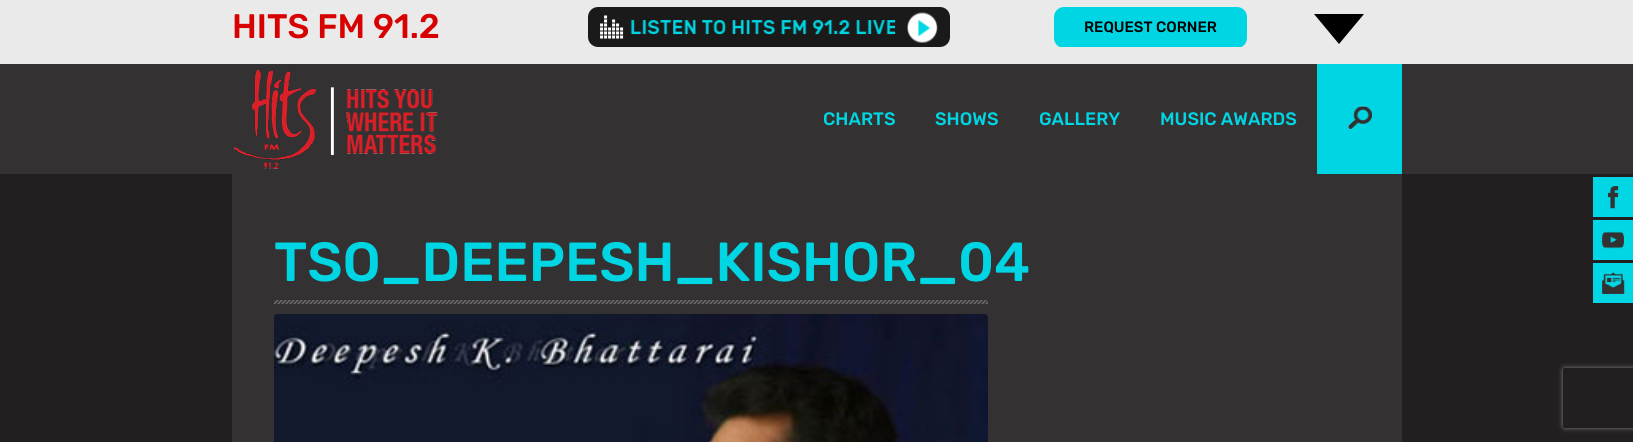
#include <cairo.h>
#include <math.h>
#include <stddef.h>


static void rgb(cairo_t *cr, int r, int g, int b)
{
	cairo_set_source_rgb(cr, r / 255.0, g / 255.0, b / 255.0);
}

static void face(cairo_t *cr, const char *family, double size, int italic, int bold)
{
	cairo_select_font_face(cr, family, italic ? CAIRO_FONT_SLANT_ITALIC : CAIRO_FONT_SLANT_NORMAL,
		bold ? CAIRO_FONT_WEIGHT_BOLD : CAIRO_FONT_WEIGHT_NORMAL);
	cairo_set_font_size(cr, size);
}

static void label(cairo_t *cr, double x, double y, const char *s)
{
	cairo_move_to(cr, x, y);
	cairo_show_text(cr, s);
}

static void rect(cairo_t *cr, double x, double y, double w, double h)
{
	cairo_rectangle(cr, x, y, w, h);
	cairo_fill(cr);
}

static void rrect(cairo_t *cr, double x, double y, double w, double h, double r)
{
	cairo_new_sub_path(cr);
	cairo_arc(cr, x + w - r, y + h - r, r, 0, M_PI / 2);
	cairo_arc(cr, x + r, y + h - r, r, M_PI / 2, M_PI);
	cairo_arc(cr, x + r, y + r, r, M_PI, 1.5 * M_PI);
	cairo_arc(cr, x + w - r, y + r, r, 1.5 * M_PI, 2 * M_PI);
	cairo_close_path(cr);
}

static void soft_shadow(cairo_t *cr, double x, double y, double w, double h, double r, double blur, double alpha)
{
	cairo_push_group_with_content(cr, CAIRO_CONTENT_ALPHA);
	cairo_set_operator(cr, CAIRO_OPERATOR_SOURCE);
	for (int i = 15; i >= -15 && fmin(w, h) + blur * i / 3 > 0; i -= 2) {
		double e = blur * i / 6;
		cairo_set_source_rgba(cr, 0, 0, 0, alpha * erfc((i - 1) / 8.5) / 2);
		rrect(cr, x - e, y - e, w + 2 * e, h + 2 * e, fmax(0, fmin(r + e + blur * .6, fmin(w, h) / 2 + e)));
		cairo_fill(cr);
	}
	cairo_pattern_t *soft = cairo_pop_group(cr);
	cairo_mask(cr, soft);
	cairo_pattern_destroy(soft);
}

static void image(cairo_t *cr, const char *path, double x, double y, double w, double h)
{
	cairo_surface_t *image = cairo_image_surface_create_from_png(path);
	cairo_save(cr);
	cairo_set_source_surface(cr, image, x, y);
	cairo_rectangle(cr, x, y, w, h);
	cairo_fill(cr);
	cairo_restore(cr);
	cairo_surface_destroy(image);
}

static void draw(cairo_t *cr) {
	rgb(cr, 35, 31, 32);
	cairo_paint(cr);
	rgb(cr, 234, 234, 234);
	rect(cr, 0, 0, 1633, 64);
	face(cr, "Rubik Medium", 34, 0, 0);
	rgb(cr, 216, 1, 1);
	label(cr, 232, 38, "HITS FM 91.2");
	rgb(cr, 26, 26, 26);
	rrect(cr, 588, 7, 362, 40, 10);
	cairo_fill(cr);
	image(cr, "image0.png", 600, 15, 24, 24);
	image(cr, "image1.png", 907, 12, 31, 31);
	image(cr, "image2.png", 630, 20, 266, 15);
	cairo_save(cr);
	cairo_rectangle(cr, 1007, 7, 299, 40);
	cairo_clip(cr);
	rgb(cr, 0, 214, 227);
	rrect(cr, 1054, 7, 193, 41, 10);
	cairo_fill(cr);
	cairo_restore(cr);
	face(cr, "Rubik Medium", 15, 0, 0);
	rgb(cr, 0, 0, 0);
	label(cr, 1084, 32, "REQUEST CORNER");
	cairo_new_path(cr);
	cairo_move_to(cr, 1314, 14);
	cairo_line_to(cr, 1364, 14);
	cairo_line_to(cr, 1339, 44);
	cairo_close_path(cr);
	cairo_fill(cr);
	rgb(cr, 51, 49, 50);
	rect(cr, 0, 64, 1633, 110);
	image(cr, "image3.png", 234, 70, 204, 99);
	face(cr, "Rubik Medium", 18, 0, 0);
	rgb(cr, 0, 214, 227);
	label(cr, 823, 125, "CHARTS");
	label(cr, 935, 125, "SHOWS");
	label(cr, 1039, 125, "GALLERY");
	label(cr, 1160, 125, "MUSIC AWARDS");
	rect(cr, 1317, 64, 85, 110);
	image(cr, "image4.png", 1348, 106, 25, 24);
	rgb(cr, 51, 49, 50);
	rect(cr, 232, 174, 1170, 268);
	image(cr, "image5.png", 274, 300, 714, 4);
	face(cr, "Rubik Medium", 55, 0, 0);
	rgb(cr, 0, 214, 227);
	label(cr, 274, 281, "TSO_DEEPESH_KISHOR_04");
	image(cr, "image6.png", 274, 314, 714, 128);
	image(cr, "image7.png", 1593, 177, 40, 40);
	image(cr, "image8.png", 1593, 220, 40, 40);
	image(cr, "image9.png", 1593, 263, 40, 40);
	cairo_save(cr);
	cairo_set_fill_rule(cr, CAIRO_FILL_RULE_EVEN_ODD);
	cairo_new_path(cr);
	cairo_move_to(cr, 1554, 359);
	cairo_line_to(cr, 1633, 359);
	cairo_line_to(cr, 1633, 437);
	cairo_line_to(cr, 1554, 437);
	cairo_close_path(cr);
	cairo_move_to(cr, 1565, 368);
	cairo_line_to(cr, 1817, 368);
	cairo_curve_to(cr, 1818, 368, 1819, 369, 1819, 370);
	cairo_line_to(cr, 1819, 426);
	cairo_curve_to(cr, 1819, 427, 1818, 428, 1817, 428);
	cairo_line_to(cr, 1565, 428);
	cairo_curve_to(cr, 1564, 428, 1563, 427, 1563, 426);
	cairo_line_to(cr, 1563, 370);
	cairo_curve_to(cr, 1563, 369, 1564, 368, 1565, 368);
	cairo_close_path(cr);
	cairo_clip(cr);
	rgb(cr, 128, 128, 128);
	soft_shadow(cr, 1563, 368, 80, 60, 2, 2.5, 1);
	cairo_restore(cr);
}

int main(void) {
	cairo_surface_t *surface = cairo_image_surface_create(CAIRO_FORMAT_RGB24, 1633, 442);
	cairo_t *cr = cairo_create(surface);
	cairo_font_options_t *options = cairo_font_options_create();
	cairo_font_options_set_hint_metrics(options, CAIRO_HINT_METRICS_OFF);
	cairo_font_options_set_hint_style(options, CAIRO_HINT_STYLE_NONE);
	cairo_set_font_options(cr, options);
	cairo_set_miter_limit(cr, 4);
	draw(cr);
	cairo_surface_write_to_png(surface, "render.png");
	cairo_font_options_destroy(options);
	cairo_destroy(cr);
	cairo_surface_destroy(surface);
	return 0;
}
